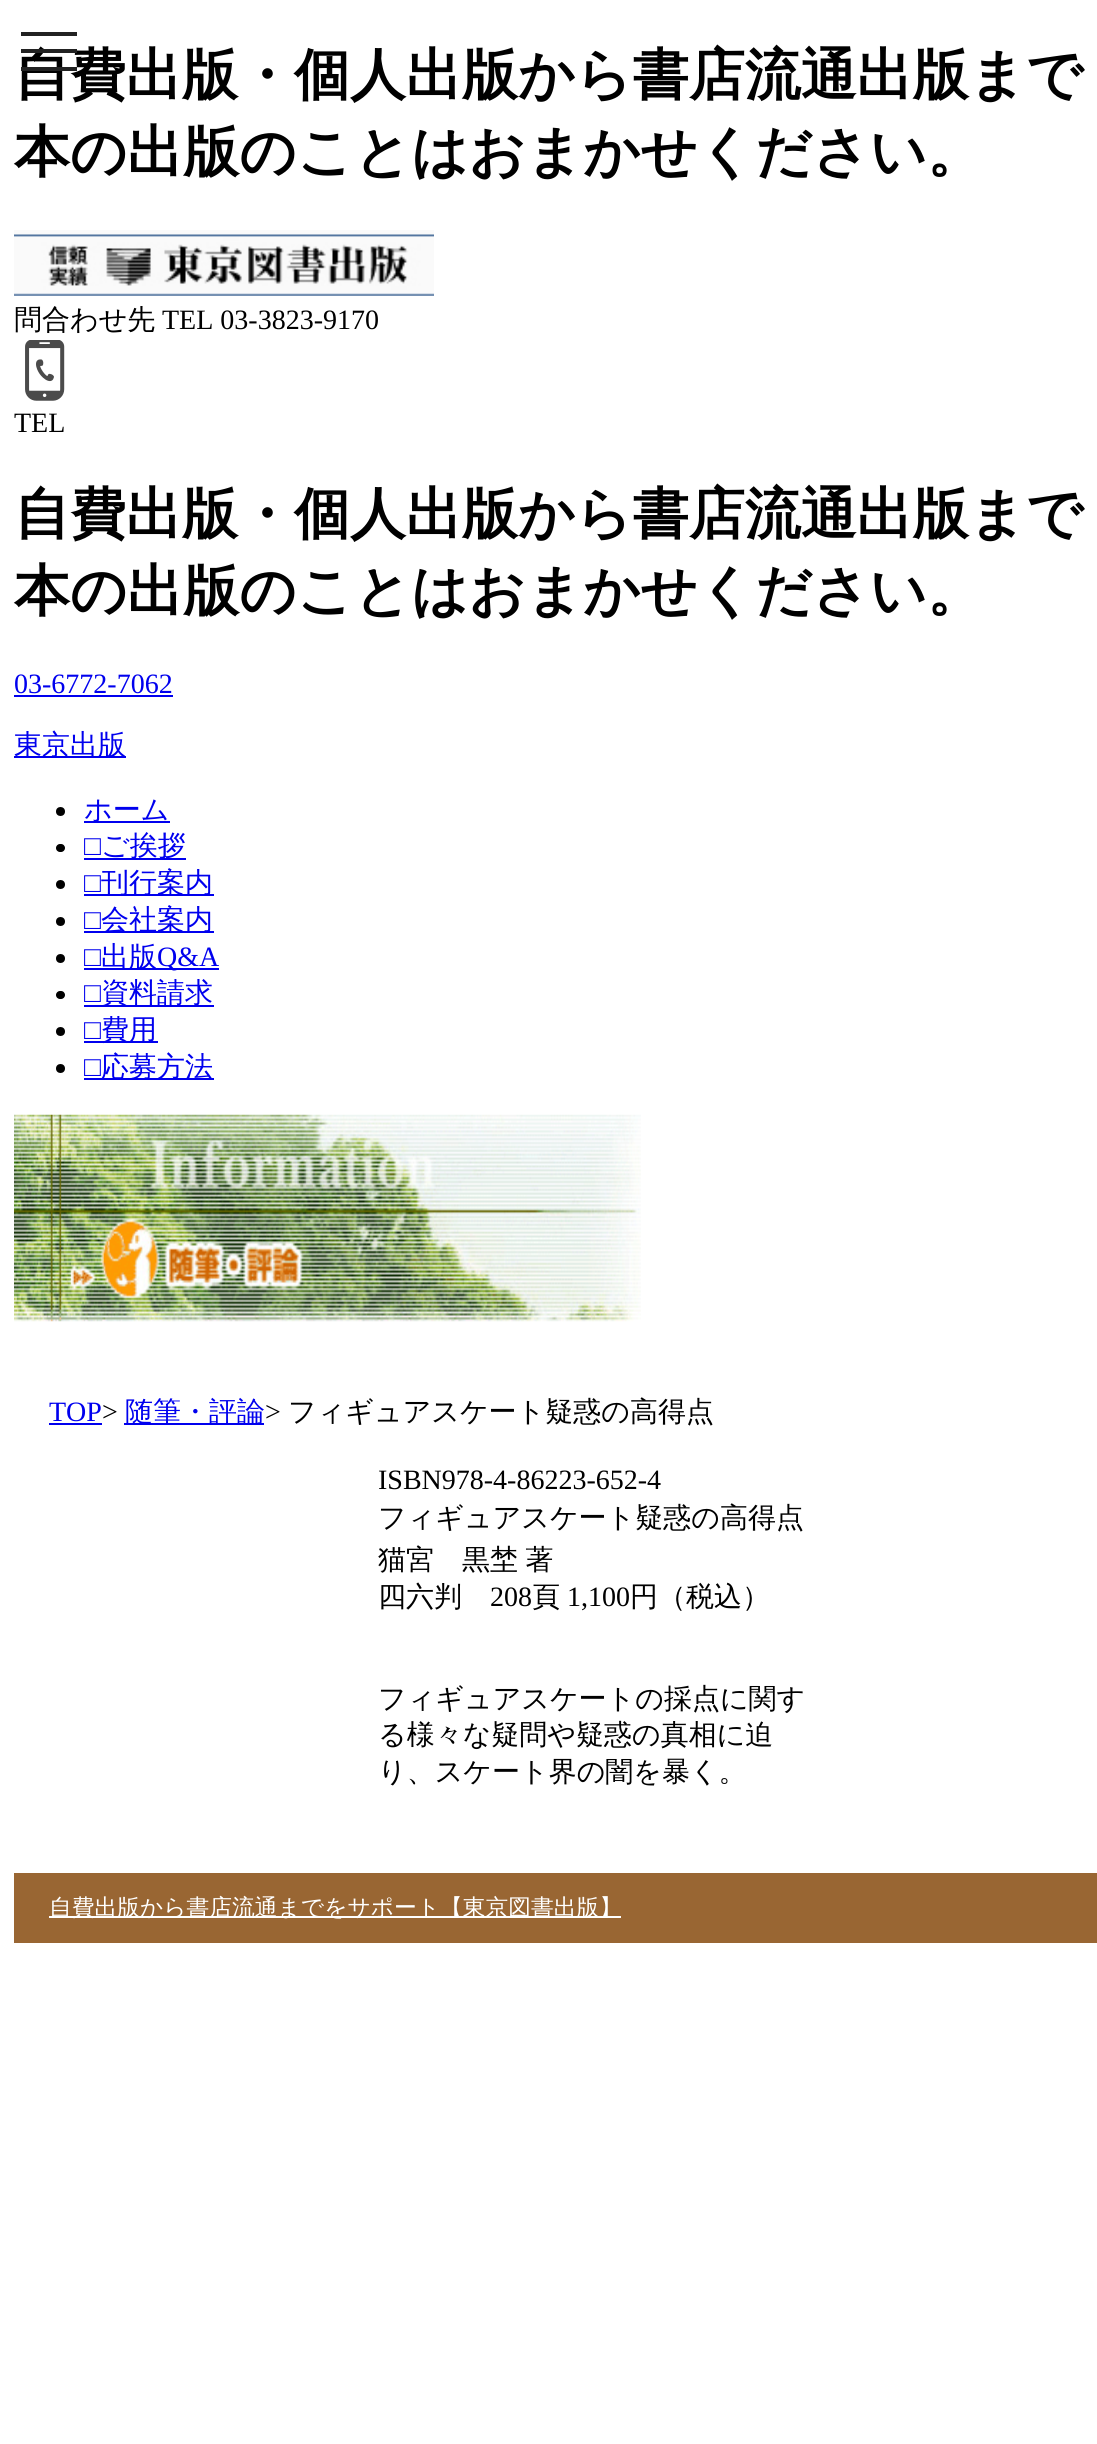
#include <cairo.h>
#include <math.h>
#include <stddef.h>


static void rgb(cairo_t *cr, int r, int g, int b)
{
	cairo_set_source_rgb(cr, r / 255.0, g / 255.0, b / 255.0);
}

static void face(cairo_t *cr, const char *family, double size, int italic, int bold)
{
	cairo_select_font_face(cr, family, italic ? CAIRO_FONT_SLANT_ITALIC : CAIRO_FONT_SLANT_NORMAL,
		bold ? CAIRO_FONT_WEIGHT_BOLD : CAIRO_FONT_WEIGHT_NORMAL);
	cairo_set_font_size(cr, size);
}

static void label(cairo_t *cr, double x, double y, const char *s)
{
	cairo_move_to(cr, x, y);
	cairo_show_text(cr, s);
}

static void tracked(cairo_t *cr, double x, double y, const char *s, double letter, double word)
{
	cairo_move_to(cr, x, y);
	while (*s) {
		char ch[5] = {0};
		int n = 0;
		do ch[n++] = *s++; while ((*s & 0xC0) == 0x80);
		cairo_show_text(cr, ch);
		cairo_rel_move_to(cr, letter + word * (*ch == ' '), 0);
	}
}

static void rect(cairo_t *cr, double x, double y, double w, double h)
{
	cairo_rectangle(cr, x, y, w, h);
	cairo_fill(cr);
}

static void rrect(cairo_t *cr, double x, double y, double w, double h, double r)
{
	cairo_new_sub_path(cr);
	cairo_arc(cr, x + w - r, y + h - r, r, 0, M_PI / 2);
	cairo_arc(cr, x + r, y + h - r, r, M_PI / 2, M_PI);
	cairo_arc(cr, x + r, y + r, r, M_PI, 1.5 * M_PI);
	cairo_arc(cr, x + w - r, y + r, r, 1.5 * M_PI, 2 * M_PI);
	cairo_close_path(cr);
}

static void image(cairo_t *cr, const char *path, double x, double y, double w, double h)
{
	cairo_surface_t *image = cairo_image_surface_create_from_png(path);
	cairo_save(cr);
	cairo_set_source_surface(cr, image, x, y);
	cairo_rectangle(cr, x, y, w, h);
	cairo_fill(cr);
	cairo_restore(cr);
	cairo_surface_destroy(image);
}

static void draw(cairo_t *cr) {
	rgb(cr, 255, 255, 255);
	cairo_paint(cr);
	face(cr, "WenQuanYi Zen Hei", 56, 0, 1);
	rgb(cr, 0, 0, 0);
	label(cr, 14, 94, "自費出版・個人出版から書店流通出版まで");
	rgb(cr, 34, 34, 34);
	rect(cr, 21, 49, 56, 4);
	rect(cr, 21, 32, 56, 4);
	rect(cr, 21, 67, 56, 4);
	rgb(cr, 0, 0, 0);
	label(cr, 14, 171, "本の出版のことはおまかせください。");
	image(cr, "image0.png", 14, 230, 420, 66);
	face(cr, "WenQuanYi Zen Hei Medium", 28, 0, 0);
	label(cr, 14, 329, "問合わせ先");
	face(cr, "Liberation Serif", 28, 0, 0);
	label(cr, 162, 329, "TEL 03-3823-9170");
	image(cr, "image1.png", 25, 340, 40, 61);
	label(cr, 14, 432, "TEL");
	face(cr, "WenQuanYi Zen Hei", 56, 0, 1);
	label(cr, 14, 533, "自費出版・個人出版から書店流通出版まで");
	label(cr, 14, 610, "本の出版のことはおまかせください。");
	face(cr, "Liberation Serif", 28, 0, 0);
	rgb(cr, 0, 0, 238);
	label(cr, 14, 693, "03-6772-7062");
	rect(cr, 14, 695, 159, 2);
	rect(cr, 14, 756, 112, 2);
	face(cr, "WenQuanYi Zen Hei Medium", 28, 0, 0);
	label(cr, 14, 754, "東京出版");
	rgb(cr, 0, 0, 0);
	cairo_new_path(cr);
	cairo_arc(cr, 60.5, 811.5, 4.5, 0, 2 * M_PI);
	cairo_fill(cr);
	rgb(cr, 0, 0, 238);
	rect(cr, 84, 821, 86, 2);
	label(cr, 84, 819, "ホーム");
	rgb(cr, 0, 0, 0);
	rrect(cr, 56, 844, 9, 8, 4);
	cairo_fill(cr);
	face(cr, "Liberation Serif", 28, 0, 0);
	rgb(cr, 0, 0, 238);
	label(cr, 84, 855, "□");
	rect(cr, 84, 858, 102, 2);
	face(cr, "WenQuanYi Zen Hei Medium", 28, 0, 0);
	label(cr, 101, 855, "ご挨拶");
	rgb(cr, 0, 0, 0);
	cairo_new_path(cr);
	cairo_arc(cr, 60.5, 884.5, 4.5, 0, 2 * M_PI);
	cairo_fill(cr);
	face(cr, "Liberation Serif", 28, 0, 0);
	rgb(cr, 0, 0, 238);
	label(cr, 84, 892, "□");
	rect(cr, 84, 894, 130, 2);
	face(cr, "WenQuanYi Zen Hei Medium", 28, 0, 0);
	label(cr, 101, 892, "刊行案内");
	rgb(cr, 0, 0, 0);
	cairo_new_path(cr);
	cairo_arc(cr, 60.5, 921.5, 4.5, 0, 2 * M_PI);
	cairo_fill(cr);
	face(cr, "Liberation Serif", 28, 0, 0);
	rgb(cr, 0, 0, 238);
	label(cr, 84, 929, "□");
	rect(cr, 84, 931, 130, 2);
	face(cr, "WenQuanYi Zen Hei Medium", 28, 0, 0);
	label(cr, 101, 929, "会社案内");
	rgb(cr, 0, 0, 0);
	cairo_new_path(cr);
	cairo_arc(cr, 60.5, 958.5, 4.5, 0, 2 * M_PI);
	cairo_fill(cr);
	face(cr, "Liberation Serif", 28, 0, 0);
	rgb(cr, 0, 0, 238);
	label(cr, 84, 966, "□");
	rect(cr, 84, 968, 135, 2);
	face(cr, "WenQuanYi Zen Hei Medium", 28, 0, 0);
	label(cr, 101, 966, "出版");
	face(cr, "Liberation Serif", 28, 0, 0);
	label(cr, 157, 966, "Q&A");
	rgb(cr, 0, 0, 0);
	rrect(cr, 56, 991, 9, 8, 4);
	cairo_fill(cr);
	rgb(cr, 0, 0, 238);
	label(cr, 84, 1002, "□");
	rect(cr, 84, 1005, 130, 2);
	face(cr, "WenQuanYi Zen Hei Medium", 28, 0, 0);
	label(cr, 101, 1002, "資料請求");
	rgb(cr, 0, 0, 0);
	cairo_new_path(cr);
	cairo_arc(cr, 60.5, 1031.5, 4.5, 0, 2 * M_PI);
	cairo_fill(cr);
	face(cr, "Liberation Serif", 28, 0, 0);
	rgb(cr, 0, 0, 238);
	label(cr, 84, 1039, "□");
	rect(cr, 84, 1041, 74, 2);
	face(cr, "WenQuanYi Zen Hei Medium", 28, 0, 0);
	label(cr, 101, 1039, "費用");
	rgb(cr, 0, 0, 0);
	cairo_new_path(cr);
	cairo_arc(cr, 60.5, 1068.5, 4.5, 0, 2 * M_PI);
	cairo_fill(cr);
	face(cr, "Liberation Serif", 28, 0, 0);
	rgb(cr, 0, 0, 238);
	label(cr, 84, 1076, "□");
	rect(cr, 84, 1078, 130, 2);
	face(cr, "WenQuanYi Zen Hei Medium", 28, 0, 0);
	label(cr, 101, 1076, "応募方法");
	image(cr, "image2.png", 14, 1114, 627, 208);
	face(cr, "Liberation Serif", 28, 0, 0);
	label(cr, 49, 1421, "TOP");
	rect(cr, 49, 1423, 53, 2);
	rgb(cr, 0, 0, 0);
	label(cr, 102, 1421, ">");
	rgb(cr, 0, 0, 238);
	rect(cr, 124, 1423, 140, 2);
	face(cr, "WenQuanYi Zen Hei Medium", 28, 0, 0);
	label(cr, 125, 1421, "随筆・評論");
	face(cr, "Liberation Serif", 28, 0, 0);
	rgb(cr, 0, 0, 0);
	label(cr, 265, 1421, ">");
	face(cr, "WenQuanYi Zen Hei Medium", 28, 0, 0);
	label(cr, 288, 1421, "フィギュアスケート疑惑の高得点");
	face(cr, "Liberation Serif", 28, 0, 0);
	label(cr, 378, 1489, "ISBN978-4-86223-652-4");
	face(cr, "WenQuanYi Zen Hei Medium", 28, 0, 0);
	label(cr, 378, 1527, "フィギュアスケート疑惑の高得点");
	tracked(cr, 378, 1569, "猫宮　黒埜 著", 0, -1);
	label(cr, 378, 1606, "四六判");
	face(cr, "Liberation Serif", 28, 0, 0);
	label(cr, 490, 1606, "208");
	face(cr, "WenQuanYi Zen Hei Medium", 28, 0, 0);
	label(cr, 532, 1606, "頁");
	face(cr, "Liberation Serif", 28, 0, 0);
	label(cr, 567, 1606, "1,100");
	face(cr, "WenQuanYi Zen Hei Medium", 28, 0, 0);
	label(cr, 630, 1606, "円（税込）");
	label(cr, 378, 1708, "フィギュアスケートの採点に関す");
	label(cr, 378, 1744, "る様々な疑問や疑惑の真相に迫");
	label(cr, 378, 1781, "り、スケート界の闇を暴く。");
	rgb(cr, 153, 102, 51);
	rect(cr, 14, 1873, 1083, 70);
	rgb(cr, 255, 255, 255);
	rect(cr, 49, 1916, 572, 2);
	face(cr, "WenQuanYi Zen Hei Medium", 22.75, 0, 0);
	label(cr, 49, 1915, "自費出版から書店流通までをサポート【東京図書出版】");
}

int main(void) {
	cairo_surface_t *surface = cairo_image_surface_create(CAIRO_FORMAT_RGB24, 1097, 2444);
	cairo_t *cr = cairo_create(surface);
	cairo_font_options_t *options = cairo_font_options_create();
	cairo_font_options_set_hint_metrics(options, CAIRO_HINT_METRICS_OFF);
	cairo_font_options_set_hint_style(options, CAIRO_HINT_STYLE_NONE);
	cairo_set_font_options(cr, options);
	cairo_set_miter_limit(cr, 4);
	draw(cr);
	cairo_surface_write_to_png(surface, "render.png");
	cairo_font_options_destroy(options);
	cairo_destroy(cr);
	cairo_surface_destroy(surface);
	return 0;
}
